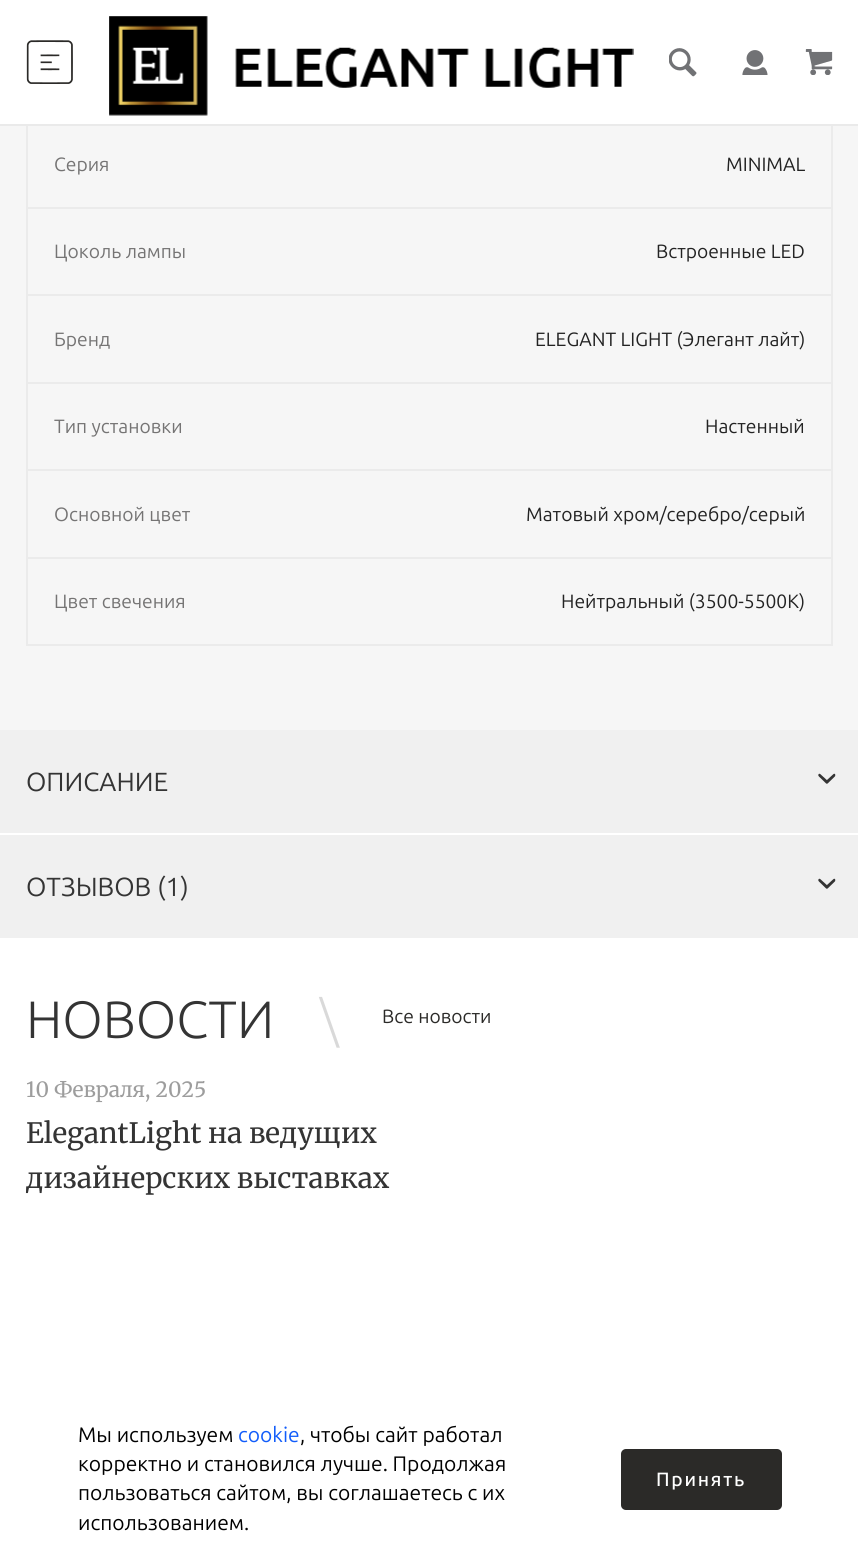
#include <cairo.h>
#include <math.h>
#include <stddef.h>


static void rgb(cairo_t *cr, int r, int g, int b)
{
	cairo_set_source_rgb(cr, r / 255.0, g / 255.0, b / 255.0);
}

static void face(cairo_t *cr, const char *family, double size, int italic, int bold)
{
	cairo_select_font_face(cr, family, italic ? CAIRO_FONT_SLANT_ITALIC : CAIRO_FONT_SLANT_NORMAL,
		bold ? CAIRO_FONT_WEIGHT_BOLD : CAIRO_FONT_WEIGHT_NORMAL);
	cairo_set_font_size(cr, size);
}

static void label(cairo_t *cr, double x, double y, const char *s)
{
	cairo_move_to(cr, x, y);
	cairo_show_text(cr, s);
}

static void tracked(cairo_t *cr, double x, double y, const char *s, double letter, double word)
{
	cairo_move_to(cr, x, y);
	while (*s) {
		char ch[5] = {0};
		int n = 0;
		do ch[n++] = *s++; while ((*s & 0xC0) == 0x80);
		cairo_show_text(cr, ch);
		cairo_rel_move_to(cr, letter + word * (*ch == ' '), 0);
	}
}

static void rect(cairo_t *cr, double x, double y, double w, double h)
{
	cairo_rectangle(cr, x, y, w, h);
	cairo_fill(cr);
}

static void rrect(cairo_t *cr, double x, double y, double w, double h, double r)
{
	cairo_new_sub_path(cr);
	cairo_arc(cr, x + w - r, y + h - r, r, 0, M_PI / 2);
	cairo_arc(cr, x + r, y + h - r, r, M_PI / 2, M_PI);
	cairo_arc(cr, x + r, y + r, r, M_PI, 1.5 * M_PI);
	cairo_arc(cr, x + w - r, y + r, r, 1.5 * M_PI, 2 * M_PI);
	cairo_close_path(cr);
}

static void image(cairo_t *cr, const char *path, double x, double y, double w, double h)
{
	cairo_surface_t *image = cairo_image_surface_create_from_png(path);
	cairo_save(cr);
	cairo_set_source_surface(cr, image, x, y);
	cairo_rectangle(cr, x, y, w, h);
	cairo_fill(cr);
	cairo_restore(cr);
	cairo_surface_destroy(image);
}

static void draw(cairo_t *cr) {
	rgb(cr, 255, 255, 255);
	cairo_paint(cr);
	rgb(cr, 246, 246, 246);
	rect(cr, 0, 126, 858, 604);
	rgb(cr, 235, 235, 235);
	rect(cr, 26, 207, 805, 2);
	rect(cr, 26, 119, 2, 175);
	cairo_rectangle(cr, -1, -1, 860, 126);
	rgb(cr, 234, 234, 234);
	cairo_stroke(cr);
	rgb(cr, 255, 255, 255);
	rect(cr, 26, 119, 2, 5);
	image(cr, "image0.png", 26, 40, 47, 44);
	image(cr, "image1.png", 109, 16, 525, 100);
	image(cr, "image2.png", 669, 48, 28, 29);
	image(cr, "image3.png", 742, 50, 26, 25);
	image(cr, "image4.png", 805, 49, 28, 26);
	rgb(cr, 235, 235, 235);
	rect(cr, 831, 126, 2, 520);
	rect(cr, 26, 644, 807, 2);
	face(cr, "Ubuntu", 19.25, 0, 0);
	rgb(cr, 117, 116, 116);
	label(cr, 54, 171, "Серия");
	rgb(cr, 35, 35, 35);
	label(cr, 726, 171, "MINIMAL");
	rgb(cr, 117, 116, 116);
	label(cr, 54, 258, "Цоколь лампы");
	rgb(cr, 35, 35, 35);
	label(cr, 656, 258, "Встроенные LED");
	rgb(cr, 235, 235, 235);
	rect(cr, 26, 294, 805, 2);
	rect(cr, 26, 294, 2, 88);
	rgb(cr, 117, 116, 116);
	label(cr, 54, 346, "Бренд");
	rgb(cr, 35, 35, 35);
	label(cr, 535, 346, "ELEGANT LIGHT (Элегант лайт)");
	rgb(cr, 235, 235, 235);
	rect(cr, 26, 382, 805, 2);
	rect(cr, 26, 382, 2, 87);
	rgb(cr, 117, 116, 116);
	label(cr, 54, 433, "Тип установки");
	rgb(cr, 35, 35, 35);
	label(cr, 705, 433, "Настенный");
	rgb(cr, 235, 235, 235);
	rect(cr, 26, 469, 805, 2);
	rect(cr, 26, 469, 2, 88);
	rgb(cr, 117, 116, 116);
	label(cr, 54, 521, "Основной цвет");
	rgb(cr, 35, 35, 35);
	label(cr, 526, 521, "Матовый хром/серебро/серый");
	rgb(cr, 235, 235, 235);
	rect(cr, 26, 557, 805, 2);
	rect(cr, 26, 557, 2, 87);
	rgb(cr, 117, 116, 116);
	label(cr, 54, 608, "Цвет свечения");
	rgb(cr, 35, 35, 35);
	label(cr, 561, 608, "Нейтральный (3500-5500К)");
	rgb(cr, 240, 240, 240);
	rect(cr, 0, 730, 858, 103);
	face(cr, "Ubuntu", 26.25, 0, 0);
	rgb(cr, 52, 52, 52);
	label(cr, 26, 791, "ОПИСАНИЕ");
	image(cr, "image5.png", 818, 773, 18, 11);
	rgb(cr, 240, 240, 240);
	rect(cr, 0, 835, 858, 103);
	rgb(cr, 52, 52, 52);
	label(cr, 26, 896, "ОТЗЫВОВ (1)");
	image(cr, "image5.png", 818, 878, 18, 11);
	face(cr, "Ubuntu Light", 52.5, 0, 0);
	label(cr, 26, 1038, "НОВОСТИ");
	rgb(cr, 217, 217, 217);
	label(cr, 320, 1038, "\\");
	face(cr, "Ubuntu", 19.25, 0, 0);
	rgb(cr, 43, 42, 40);
	label(cr, 382, 1023, "Все новости");
	face(cr, "Merriweather", 21, 0, 0);
	rgb(cr, 157, 157, 157);
	label(cr, 26, 1097, "10 Февраля, 2025");
	face(cr, "Merriweather", 28, 0, 0);
	rgb(cr, 52, 52, 52);
	label(cr, 26, 1143, "ElegantLight на ведущих");
	label(cr, 26, 1188, "дизайнерских выставках");
	face(cr, "Ubuntu", 21, 0, 0);
	rgb(cr, 0, 0, 0);
	label(cr, 78, 1442, "Мы используем");
	rgb(cr, 17, 92, 250);
	label(cr, 238, 1442, "cookie");
	rgb(cr, 0, 0, 0);
	label(cr, 300, 1442, ", чтобы сайт работал");
	label(cr, 78, 1471, "корректно и становился лучше. Продолжая");
	label(cr, 78, 1500, "пользоваться сайтом, вы соглашаетесь с их");
	label(cr, 78, 1530, "использованием.");
	rgb(cr, 43, 42, 40);
	rrect(cr, 621, 1449, 161, 61, 5);
	cairo_fill(cr);
	face(cr, "Ubuntu Medium", 19.25, 0, 0);
	rgb(cr, 255, 255, 255);
	tracked(cr, 656, 1486, "Принять", 1.75, 0);
}

int main(void) {
	cairo_surface_t *surface = cairo_image_surface_create(CAIRO_FORMAT_RGB24, 858, 1564);
	cairo_t *cr = cairo_create(surface);
	cairo_font_options_t *options = cairo_font_options_create();
	cairo_font_options_set_hint_metrics(options, CAIRO_HINT_METRICS_OFF);
	cairo_font_options_set_hint_style(options, CAIRO_HINT_STYLE_NONE);
	cairo_set_font_options(cr, options);
	cairo_set_miter_limit(cr, 4);
	draw(cr);
	cairo_surface_write_to_png(surface, "render.png");
	cairo_font_options_destroy(options);
	cairo_destroy(cr);
	cairo_surface_destroy(surface);
	return 0;
}
